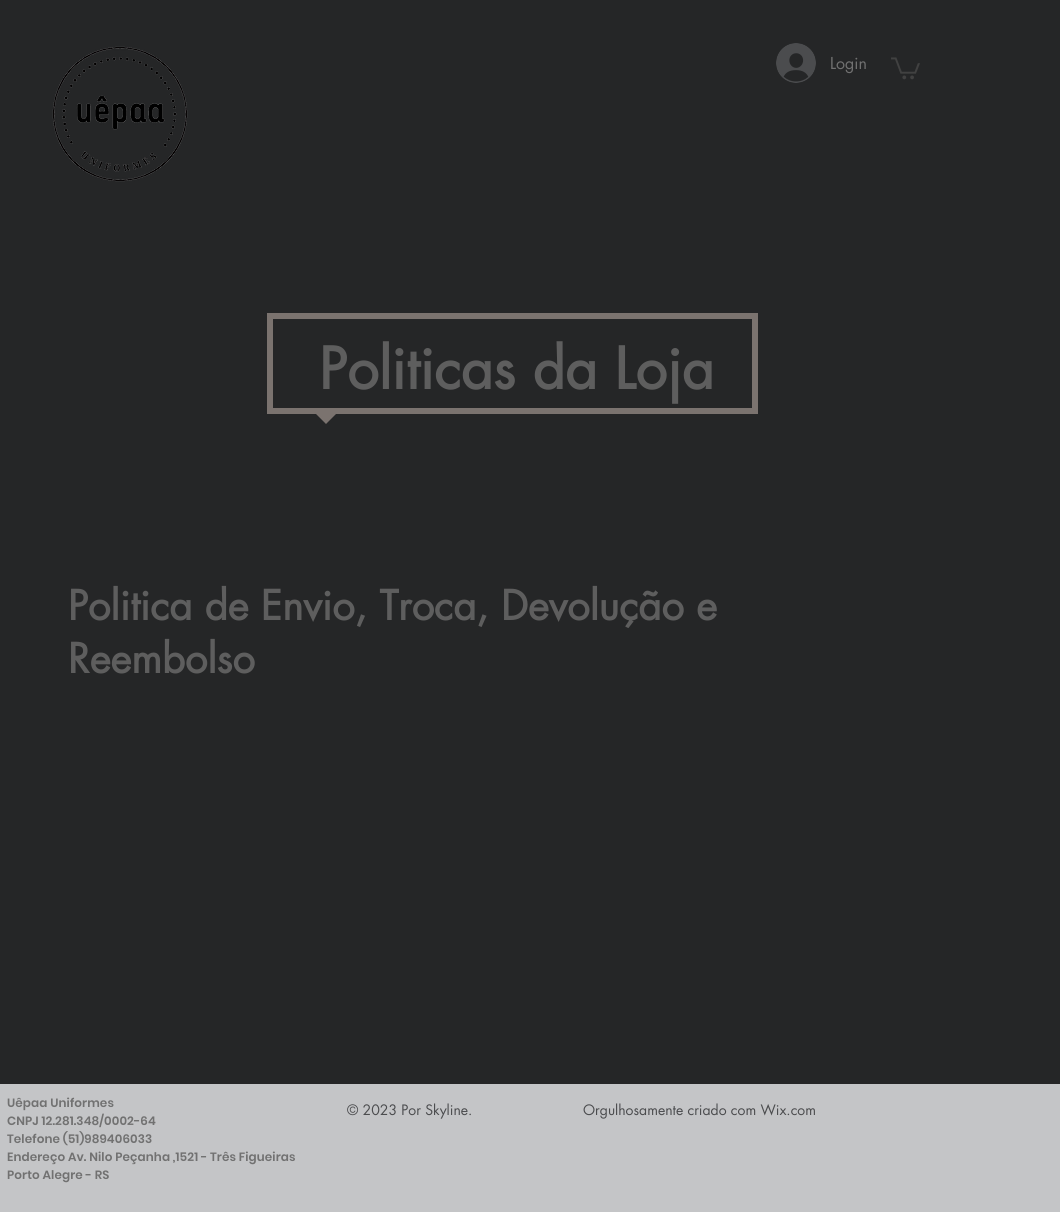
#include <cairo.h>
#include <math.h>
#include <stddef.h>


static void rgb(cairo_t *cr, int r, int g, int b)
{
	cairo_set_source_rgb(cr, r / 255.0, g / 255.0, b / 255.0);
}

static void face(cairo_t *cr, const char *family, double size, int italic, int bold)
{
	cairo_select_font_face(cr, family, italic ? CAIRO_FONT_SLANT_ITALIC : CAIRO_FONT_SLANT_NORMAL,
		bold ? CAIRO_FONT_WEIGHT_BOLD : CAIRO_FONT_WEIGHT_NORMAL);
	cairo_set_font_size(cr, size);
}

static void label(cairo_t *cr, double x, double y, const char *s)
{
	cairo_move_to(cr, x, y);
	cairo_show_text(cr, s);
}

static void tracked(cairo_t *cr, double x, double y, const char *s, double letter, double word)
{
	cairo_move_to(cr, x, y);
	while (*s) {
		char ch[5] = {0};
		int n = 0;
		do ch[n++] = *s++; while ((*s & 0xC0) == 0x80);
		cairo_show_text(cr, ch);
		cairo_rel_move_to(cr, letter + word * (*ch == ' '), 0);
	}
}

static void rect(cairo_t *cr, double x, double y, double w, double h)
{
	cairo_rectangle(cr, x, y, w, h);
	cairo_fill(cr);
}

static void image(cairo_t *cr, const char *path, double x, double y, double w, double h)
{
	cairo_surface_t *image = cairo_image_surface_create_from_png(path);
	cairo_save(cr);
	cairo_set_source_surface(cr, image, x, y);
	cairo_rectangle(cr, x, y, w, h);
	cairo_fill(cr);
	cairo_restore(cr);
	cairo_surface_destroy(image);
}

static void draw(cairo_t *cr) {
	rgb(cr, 37, 38, 39);
	cairo_paint(cr);
	image(cr, "image0.png", 52, 46, 136, 136);
	image(cr, "image1.png", 776, 43, 40, 40);
	face(cr, "futura", 16, 0, 0);
	rgb(cr, 113, 113, 113);
	label(cr, 830, 69, "Login");
	image(cr, "image2.png", 891, 57, 29, 23);
	cairo_rectangle(cr, 270, 316, 485, 95);
	rgb(cr, 123, 115, 111);
	cairo_set_line_width(cr, 6);
	cairo_stroke(cr);
	face(cr, "futura", 56, 0, 1);
	rgb(cr, 94, 94, 94);
	label(cr, 319, 389, "Politicas da Loja");
	rgb(cr, 123, 115, 111);
	cairo_new_path(cr);
	cairo_move_to(cr, 316, 414);
	cairo_line_to(cr, 336, 414);
	cairo_line_to(cr, 326, 424);
	cairo_close_path(cr);
	cairo_fill(cr);
	face(cr, "futura", 40, 0, 1);
	rgb(cr, 94, 94, 94);
	label(cr, 68, 620, "Politica de Envio, Troca, Devolução e");
	label(cr, 68, 673, "Reembolso");
	rgb(cr, 196, 197, 199);
	rect(cr, 0, 1084, 1060, 128);
	face(cr, "Poppins SemiBold", 12, 0, 0);
	rgb(cr, 113, 113, 113);
	tracked(cr, 7, 1107, "Uêpaa Uniformes", 0.1, 0);
	tracked(cr, 7, 1125, "CNPJ 12.281.348/0002-64", 0.1, 0);
	tracked(cr, 7, 1143, "Telefone (51)989406033", 0.1, 0);
	tracked(cr, 7, 1161, "Endereço Av. Nilo Peçanha ,1521 - Três Figueiras", 0.1, 0);
	tracked(cr, 7, 1179, "Porto Alegre - RS", 0.1, 0);
	face(cr, "futura", 14, 0, 0);
	rgb(cr, 75, 76, 78);
	label(cr, 347, 1115, "© 2023 Por Skyline.");
	label(cr, 583, 1115, "Orgulhosamente criado com Wix.com");
}

int main(void) {
	cairo_surface_t *surface = cairo_image_surface_create(CAIRO_FORMAT_RGB24, 1060, 1212);
	cairo_t *cr = cairo_create(surface);
	cairo_font_options_t *options = cairo_font_options_create();
	cairo_font_options_set_hint_metrics(options, CAIRO_HINT_METRICS_OFF);
	cairo_font_options_set_hint_style(options, CAIRO_HINT_STYLE_NONE);
	cairo_set_font_options(cr, options);
	cairo_set_miter_limit(cr, 4);
	draw(cr);
	cairo_surface_write_to_png(surface, "render.png");
	cairo_font_options_destroy(options);
	cairo_destroy(cr);
	cairo_surface_destroy(surface);
	return 0;
}
